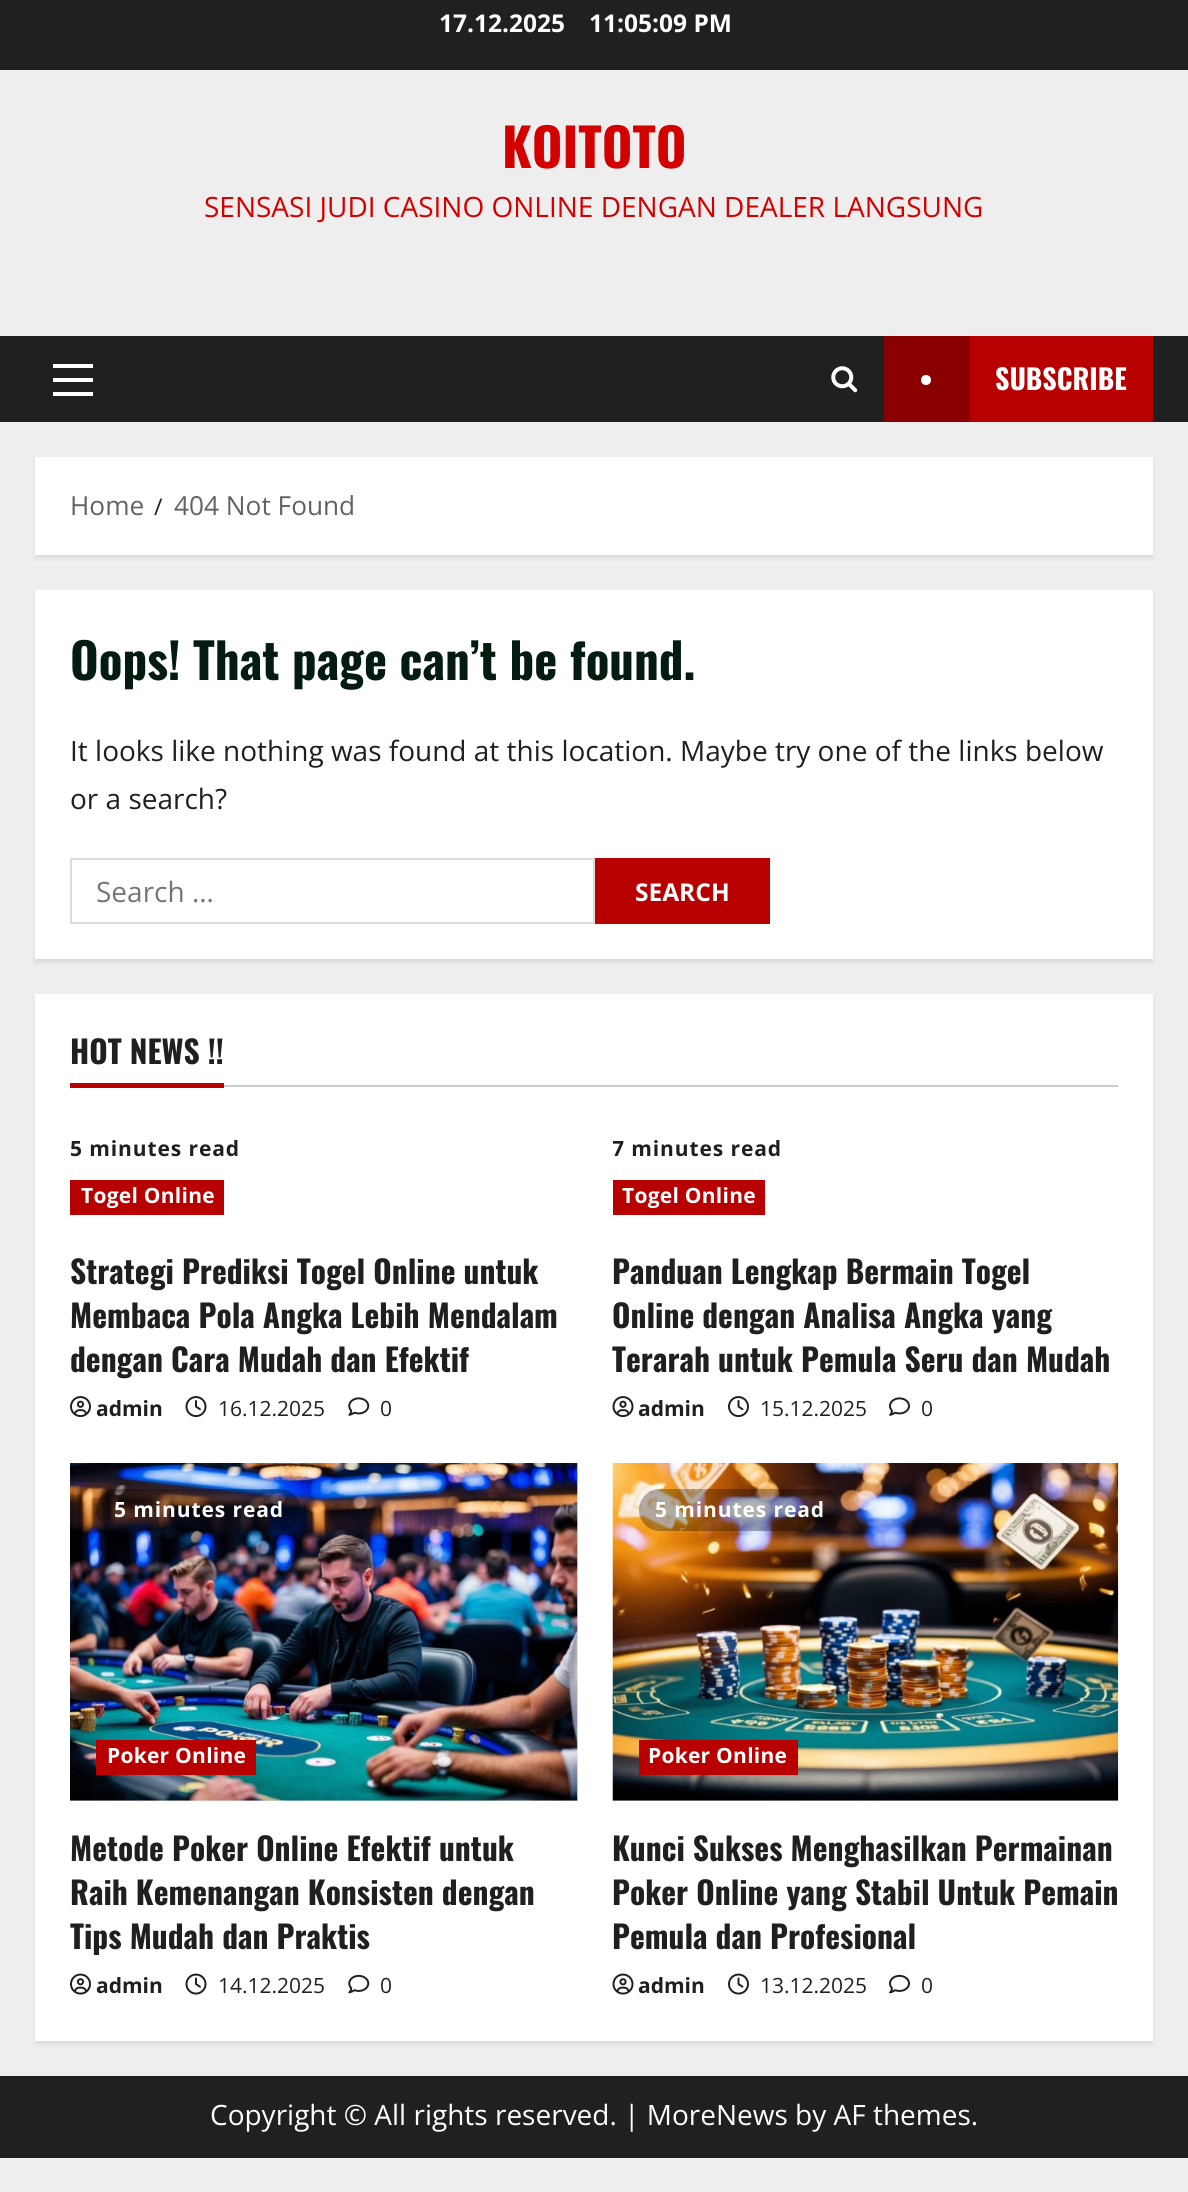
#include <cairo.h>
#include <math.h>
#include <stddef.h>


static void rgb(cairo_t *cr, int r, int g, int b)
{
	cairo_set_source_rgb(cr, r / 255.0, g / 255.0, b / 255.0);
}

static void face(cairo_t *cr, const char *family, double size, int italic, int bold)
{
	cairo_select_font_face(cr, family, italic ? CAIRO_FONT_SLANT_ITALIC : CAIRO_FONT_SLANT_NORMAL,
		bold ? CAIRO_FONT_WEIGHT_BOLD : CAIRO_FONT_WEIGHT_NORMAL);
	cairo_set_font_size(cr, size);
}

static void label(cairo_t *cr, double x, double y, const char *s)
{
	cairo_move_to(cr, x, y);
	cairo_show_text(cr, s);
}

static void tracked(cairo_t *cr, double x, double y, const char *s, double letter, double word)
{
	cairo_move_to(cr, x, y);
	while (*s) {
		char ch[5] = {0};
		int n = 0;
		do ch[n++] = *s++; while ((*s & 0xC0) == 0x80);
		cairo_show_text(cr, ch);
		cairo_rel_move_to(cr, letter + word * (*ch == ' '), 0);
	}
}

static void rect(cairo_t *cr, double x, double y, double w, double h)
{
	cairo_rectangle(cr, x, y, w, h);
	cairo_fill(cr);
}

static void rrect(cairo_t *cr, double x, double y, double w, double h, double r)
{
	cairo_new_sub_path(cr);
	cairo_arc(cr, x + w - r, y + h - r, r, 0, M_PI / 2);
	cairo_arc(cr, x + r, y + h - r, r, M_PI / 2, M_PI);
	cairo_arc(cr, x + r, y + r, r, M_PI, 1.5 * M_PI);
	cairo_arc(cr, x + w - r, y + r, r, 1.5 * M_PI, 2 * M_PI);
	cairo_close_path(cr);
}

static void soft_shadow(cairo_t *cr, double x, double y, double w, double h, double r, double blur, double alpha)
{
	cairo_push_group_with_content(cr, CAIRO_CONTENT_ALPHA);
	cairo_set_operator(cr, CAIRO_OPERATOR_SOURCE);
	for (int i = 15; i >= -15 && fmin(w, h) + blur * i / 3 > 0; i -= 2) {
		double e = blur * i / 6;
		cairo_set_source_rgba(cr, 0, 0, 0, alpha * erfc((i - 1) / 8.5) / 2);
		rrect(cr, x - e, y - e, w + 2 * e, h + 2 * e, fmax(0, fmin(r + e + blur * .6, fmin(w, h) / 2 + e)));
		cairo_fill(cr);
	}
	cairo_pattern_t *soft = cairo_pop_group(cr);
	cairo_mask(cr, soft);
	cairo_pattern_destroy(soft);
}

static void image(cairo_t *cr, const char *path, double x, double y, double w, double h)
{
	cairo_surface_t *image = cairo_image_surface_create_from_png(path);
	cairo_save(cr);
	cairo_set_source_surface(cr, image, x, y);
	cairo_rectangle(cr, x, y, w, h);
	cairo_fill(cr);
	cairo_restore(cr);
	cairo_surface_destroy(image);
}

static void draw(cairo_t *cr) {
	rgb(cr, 238, 238, 238);
	cairo_paint(cr);
	rgb(cr, 32, 32, 32);
	rect(cr, 0, 0, 1188, 70);
	face(cr, "Open Sans", 24.5, 0, 1);
	rgb(cr, 255, 255, 255);
	label(cr, 439, 32, "17.12.2025");
	label(cr, 589, 32, "11:05:09 PM");
	face(cr, "Oswald", 52.5, 0, 1);
	rgb(cr, 211, 0, 0);
	label(cr, 502, 168, "KOITOTO");
	face(cr, "Open Sans", 28, 0, 0);
	label(cr, 204, 217, "SENSASI JUDI CASINO ONLINE DENGAN DEALER LANGSUNG");
	rgb(cr, 32, 32, 32);
	rect(cr, 0, 336, 1188, 86);
	rgb(cr, 255, 255, 255);
	rect(cr, 53, 378, 40, 4);
	rect(cr, 53, 364, 40, 4);
	rect(cr, 53, 392, 40, 4);
	image(cr, "image0.png", 831, 366, 27, 27);
	rgb(cr, 184, 0, 0);
	rect(cr, 970, 336, 183, 86);
	rgb(cr, 138, 0, 0);
	rect(cr, 884, 336, 86, 86);
	rgb(cr, 255, 255, 255);
	cairo_arc(cr, 926, 380, 5, 0, 2 * M_PI);
	cairo_fill(cr);
	face(cr, "Oswald", 28, 0, 1);
	label(cr, 995, 390, "SUBSCRIBE");
	rgb(cr, 0, 0, 0);
	soft_shadow(cr, 35, 460, 1118, 98, 0, 2, 0.08);
	rgb(cr, 255, 255, 255);
	rect(cr, 35, 457, 1118, 98);
	face(cr, "Open Sans", 26.25, 0, 0);
	rgb(cr, 98, 98, 98);
	label(cr, 70, 515, "Home");
	face(cr, "Open Sans", 23, 0, 0);
	rgb(cr, 31, 31, 31);
	label(cr, 154, 515, "/");
	face(cr, "Open Sans", 26.25, 0, 0);
	rgb(cr, 98, 98, 98);
	label(cr, 174, 515, "404 Not Found");
	rgb(cr, 0, 0, 0);
	soft_shadow(cr, 35, 593, 1118, 370, 0, 2, 0.08);
	rgb(cr, 255, 255, 255);
	rect(cr, 35, 590, 1118, 369);
	face(cr, "Oswald", 49, 0, 1);
	rgb(cr, 3, 27, 17);
	label(cr, 70, 680, "Oops! That page can’t be found.");
	face(cr, "Open Sans", 28, 0, 0);
	rgb(cr, 31, 31, 31);
	label(cr, 70, 761, "It looks like nothing was found at this location. Maybe try one of the links below");
	label(cr, 70, 809, "or a search?");
	cairo_rectangle(cr, 71, 859, 523, 64);
	rgb(cr, 220, 220, 220);
	cairo_stroke(cr);
	rgb(cr, 117, 117, 117);
	label(cr, 96, 902, "Search …");
	rgb(cr, 184, 0, 0);
	rect(cr, 595, 858, 175, 66);
	face(cr, "Open Sans", 24.5, 0, 1);
	rgb(cr, 255, 255, 255);
	label(cr, 635, 901, "SEARCH");
	rgb(cr, 0, 0, 0);
	soft_shadow(cr, 35, 998, 1118, 1046, 0, 2, 0.08);
	rgb(cr, 255, 255, 255);
	rect(cr, 35, 994, 1118, 1047);
	rgb(cr, 204, 204, 204);
	rect(cr, 224, 1085, 894, 2);
	face(cr, "Oswald", 31.5, 0, 1);
	rgb(cr, 31, 31, 31);
	label(cr, 70, 1064, "HOT NEWS !!");
	rgb(cr, 184, 0, 0);
	rect(cr, 70, 1083, 154, 5);
	face(cr, "Open Sans", 21, 0, 1);
	rgb(cr, 31, 31, 31);
	tracked(cr, 70, 1156, "5 minutes read", 0.9, 0);
	rgb(cr, 184, 0, 0);
	rect(cr, 70, 1180, 154, 35);
	rgb(cr, 255, 255, 255);
	tracked(cr, 81, 1203, "Togel Online", 0.25, 0);
	face(cr, "Oswald", 31.5, 0, 1);
	rgb(cr, 31, 31, 31);
	label(cr, 70, 1284, "Strategi Prediksi Togel Online untuk");
	label(cr, 70, 1328, "Membaca Pola Angka Lebih Mendalam");
	label(cr, 70, 1372, "dengan Cara Mudah dan Efektif");
	image(cr, "image1.png", 70, 1396, 21, 22);
	face(cr, "Open Sans", 21, 0, 1);
	label(cr, 96, 1416, "admin");
	image(cr, "image2.png", 185, 1396, 22, 21);
	face(cr, "Open Sans", 21, 0, 0);
	label(cr, 218, 1416, "16.12.2025");
	image(cr, "image3.png", 348, 1397, 22, 19);
	label(cr, 380, 1416, "0");
	cairo_save(cr);
	cairo_rectangle(cr, 613, 1122, 505, 101);
	cairo_clip(cr);
	face(cr, "Open Sans", 21, 0, 1);
	tracked(cr, 612, 1156, "7 minutes read", 0.9, 0);
	cairo_restore(cr);
	rgb(cr, 184, 0, 0);
	rect(cr, 613, 1180, 152, 35);
	face(cr, "Open Sans", 21, 0, 1);
	rgb(cr, 255, 255, 255);
	tracked(cr, 622, 1203, "Togel Online", 0.25, 0);
	face(cr, "Oswald", 31.5, 0, 1);
	rgb(cr, 31, 31, 31);
	label(cr, 612, 1284, "Panduan Lengkap Bermain Togel");
	label(cr, 612, 1328, "Online dengan Analisa Angka yang");
	label(cr, 612, 1372, "Terarah untuk Pemula Seru dan Mudah");
	image(cr, "image4.png", 612, 1396, 22, 21);
	face(cr, "Open Sans", 21, 0, 1);
	label(cr, 638, 1416, "admin");
	image(cr, "image5.png", 728, 1396, 21, 22);
	face(cr, "Open Sans", 21, 0, 0);
	label(cr, 760, 1416, "15.12.2025");
	image(cr, "image6.png", 889, 1397, 21, 19);
	label(cr, 921, 1416, "0");
	rgb(cr, 236, 236, 236);
	rect(cr, 70, 1463, 508, 338);
	image(cr, "image7.png", 70, 1463, 508, 338);
	cairo_set_source_rgba(cr, 0, 0, 0, 0.3);
	rrect(cr, 96, 1489, 205, 42, 21);
	cairo_fill(cr);
	face(cr, "Open Sans", 21, 0, 1);
	rgb(cr, 255, 255, 255);
	tracked(cr, 114, 1517, "5 minutes read", 0.9, 0);
	rgb(cr, 184, 0, 0);
	rect(cr, 96, 1740, 160, 35);
	rgb(cr, 255, 255, 255);
	tracked(cr, 107, 1763, "Poker Online", 0.25, 0);
	face(cr, "Oswald", 31.5, 0, 1);
	rgb(cr, 31, 31, 31);
	label(cr, 70, 1861, "Metode Poker Online Efektif untuk");
	label(cr, 70, 1905, "Raih Kemenangan Konsisten dengan");
	label(cr, 70, 1949, "Tips Mudah dan Praktis");
	image(cr, "image8.png", 70, 1973, 21, 22);
	face(cr, "Open Sans", 21, 0, 1);
	label(cr, 96, 1993, "admin");
	image(cr, "image9.png", 185, 1973, 22, 22);
	face(cr, "Open Sans", 21, 0, 0);
	label(cr, 218, 1993, "14.12.2025");
	image(cr, "image10.png", 348, 1974, 22, 20);
	label(cr, 380, 1993, "0");
	rgb(cr, 236, 236, 236);
	rect(cr, 613, 1800, 505, 1);
	image(cr, "image11.png", 612, 1463, 507, 338);
	cairo_set_source_rgba(cr, 0, 0, 0, 0.3);
	rrect(cr, 639, 1489, 203, 42, 21);
	cairo_fill(cr);
	face(cr, "Open Sans", 21, 0, 1);
	rgb(cr, 255, 255, 255);
	tracked(cr, 655, 1517, "5 minutes read", 0.9, 0);
	rgb(cr, 184, 0, 0);
	rect(cr, 639, 1740, 159, 35);
	rgb(cr, 255, 255, 255);
	tracked(cr, 648, 1763, "Poker Online", 0.25, 0);
	face(cr, "Oswald", 31.5, 0, 1);
	rgb(cr, 31, 31, 31);
	label(cr, 612, 1861, "Kunci Sukses Menghasilkan Permainan");
	label(cr, 612, 1905, "Poker Online yang Stabil Untuk Pemain");
	label(cr, 612, 1949, "Pemula dan Profesional");
	image(cr, "image12.png", 612, 1973, 22, 22);
	face(cr, "Open Sans", 21, 0, 1);
	label(cr, 638, 1993, "admin");
	image(cr, "image13.png", 728, 1973, 21, 22);
	face(cr, "Open Sans", 21, 0, 0);
	label(cr, 760, 1993, "13.12.2025");
	image(cr, "image14.png", 889, 1974, 21, 20);
	label(cr, 921, 1993, "0");
	rgb(cr, 32, 32, 32);
	rect(cr, 0, 2076, 1188, 82);
	face(cr, "Open Sans", 28, 0, 0);
	rgb(cr, 255, 255, 255);
	label(cr, 210, 2125, "Copyright © All rights reserved. | MoreNews by AF themes.");
}

int main(void) {
	cairo_surface_t *surface = cairo_image_surface_create(CAIRO_FORMAT_RGB24, 1188, 2192);
	cairo_t *cr = cairo_create(surface);
	cairo_font_options_t *options = cairo_font_options_create();
	cairo_font_options_set_hint_metrics(options, CAIRO_HINT_METRICS_OFF);
	cairo_font_options_set_hint_style(options, CAIRO_HINT_STYLE_NONE);
	cairo_set_font_options(cr, options);
	cairo_set_miter_limit(cr, 4);
	draw(cr);
	cairo_surface_write_to_png(surface, "render.png");
	cairo_font_options_destroy(options);
	cairo_destroy(cr);
	cairo_surface_destroy(surface);
	return 0;
}
